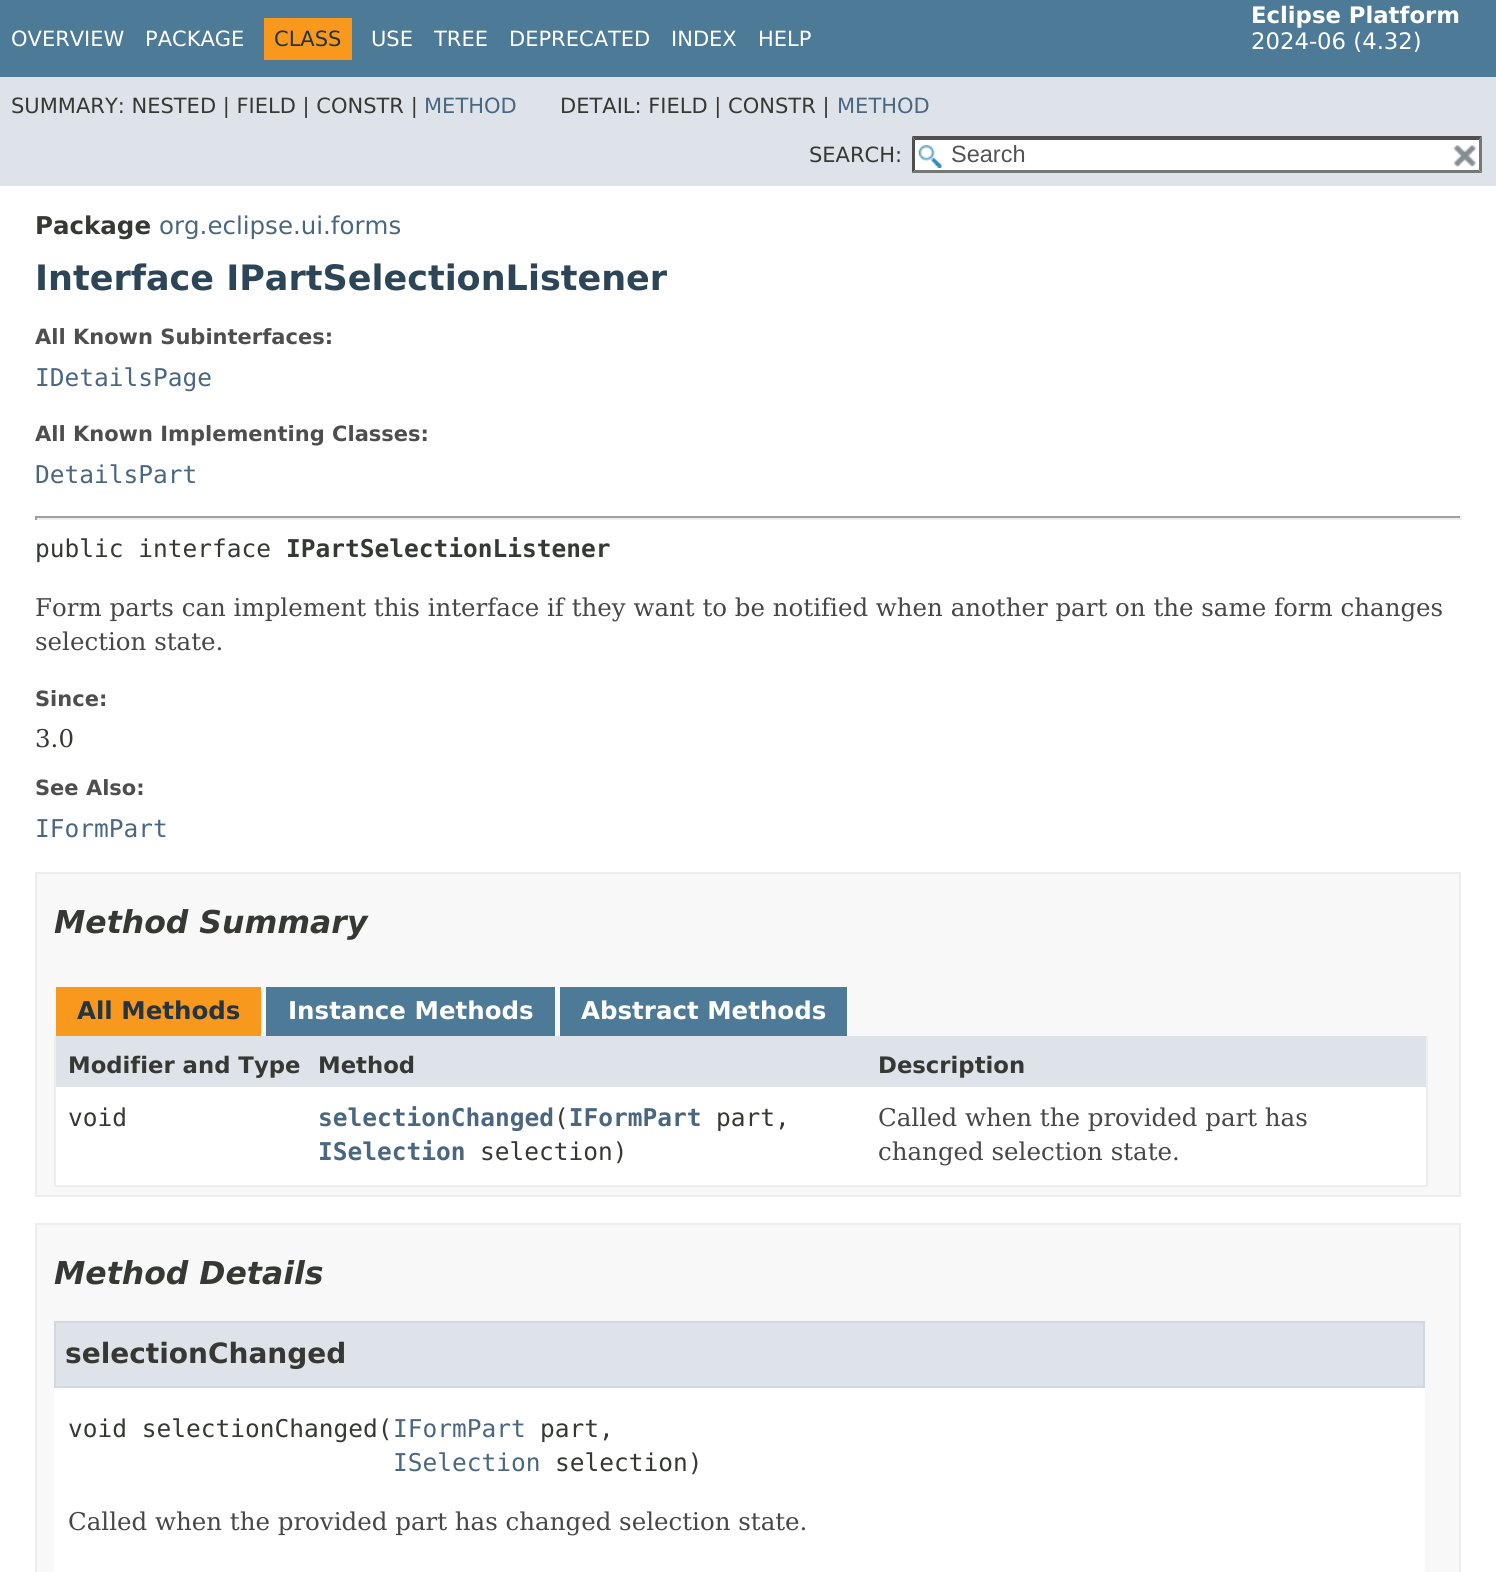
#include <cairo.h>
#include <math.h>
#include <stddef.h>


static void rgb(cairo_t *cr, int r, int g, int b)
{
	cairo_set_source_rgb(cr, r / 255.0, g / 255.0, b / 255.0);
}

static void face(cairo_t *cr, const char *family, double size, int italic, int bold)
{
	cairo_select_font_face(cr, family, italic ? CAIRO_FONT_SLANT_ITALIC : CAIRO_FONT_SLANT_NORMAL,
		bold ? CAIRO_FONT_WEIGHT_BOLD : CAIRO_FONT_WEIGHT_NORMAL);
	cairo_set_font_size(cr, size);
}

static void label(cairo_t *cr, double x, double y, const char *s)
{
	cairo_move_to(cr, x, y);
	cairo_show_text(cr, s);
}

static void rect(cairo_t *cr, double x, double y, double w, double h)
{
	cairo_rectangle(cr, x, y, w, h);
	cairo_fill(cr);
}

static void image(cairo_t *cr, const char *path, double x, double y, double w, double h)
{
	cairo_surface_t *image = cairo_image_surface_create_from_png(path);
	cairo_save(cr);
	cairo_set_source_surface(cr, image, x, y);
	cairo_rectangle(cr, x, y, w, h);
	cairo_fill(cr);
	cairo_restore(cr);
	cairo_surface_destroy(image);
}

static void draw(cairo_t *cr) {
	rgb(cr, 255, 255, 255);
	cairo_paint(cr);
	rgb(cr, 77, 122, 151);
	rect(cr, 0, 0, 1496, 77);
	face(cr, "DejaVu Sans", 21, 0, 0);
	rgb(cr, 255, 255, 255);
	label(cr, 11, 46, "OVERVIEW");
	label(cr, 145, 46, "PACKAGE");
	rgb(cr, 248, 152, 29);
	rect(cr, 264, 18, 88, 42);
	rgb(cr, 37, 52, 65);
	label(cr, 274, 46, "CLASS");
	rgb(cr, 255, 255, 255);
	label(cr, 371, 46, "USE");
	label(cr, 434, 46, "TREE");
	label(cr, 509, 46, "DEPRECATED");
	label(cr, 671, 46, "INDEX");
	label(cr, 758, 46, "HELP");
	face(cr, "DejaVu Sans", 22.75, 0, 1);
	label(cr, 1251, 23, "Eclipse Platform");
	face(cr, "DejaVu Sans", 22.75, 0, 0);
	label(cr, 1251, 49, "2024-06 (4.32)");
	rgb(cr, 222, 227, 233);
	rect(cr, 0, 77, 1496, 109);
	face(cr, "DejaVu Sans", 21, 0, 0);
	rgb(cr, 53, 56, 51);
	label(cr, 11, 113, "SUMMARY: NESTED | FIELD | CONSTR |");
	rgb(cr, 74, 103, 130);
	label(cr, 424, 113, "METHOD");
	rgb(cr, 53, 56, 51);
	label(cr, 560, 113, "DETAIL: FIELD | CONSTR |");
	rgb(cr, 74, 103, 130);
	label(cr, 837, 113, "METHOD");
	rgb(cr, 53, 56, 51);
	label(cr, 809, 162, "SEARCH:");
	rgb(cr, 255, 255, 255);
	rect(cr, 912, 137, 570, 36);
	image(cr, "image0.png", 918, 145, 24, 23);
	rgb(cr, 79, 79, 79);
	cairo_new_path(cr);
	cairo_move_to(cr, 912, 136);
	cairo_line_to(cr, 1482, 136);
	cairo_line_to(cr, 1479, 140);
	cairo_line_to(cr, 915, 140);
	cairo_close_path(cr);
	cairo_fill(cr);
	rgb(cr, 118, 118, 118);
	cairo_new_path(cr);
	cairo_move_to(cr, 1482, 136.5);
	cairo_line_to(cr, 1482, 173);
	cairo_line_to(cr, 1479, 170);
	cairo_line_to(cr, 1479, 140);
	cairo_close_path(cr);
	cairo_fill(cr);
	cairo_new_path(cr);
	cairo_move_to(cr, 1482, 173);
	cairo_line_to(cr, 912, 173);
	cairo_line_to(cr, 915, 170);
	cairo_line_to(cr, 1479, 170);
	cairo_close_path(cr);
	cairo_fill(cr);
	rgb(cr, 79, 79, 79);
	cairo_new_path(cr);
	cairo_move_to(cr, 912, 173);
	cairo_line_to(cr, 912, 136.5);
	cairo_line_to(cr, 915, 140);
	cairo_line_to(cr, 915, 170);
	cairo_close_path(cr);
	cairo_fill(cr);
	face(cr, "Liberation Sans", 23.5, 0, 0);
	rgb(cr, 84, 84, 84);
	label(cr, 951, 162, "Search");
	image(cr, "image1.png", 1453, 145, 23, 22);
	face(cr, "DejaVu Sans", 24.5, 0, 1);
	rgb(cr, 53, 56, 51);
	label(cr, 35, 234, "Package");
	face(cr, "DejaVu Sans", 24.5, 0, 0);
	rgb(cr, 74, 103, 130);
	label(cr, 159, 234, "org.eclipse.ui.forms");
	face(cr, "DejaVu Sans", 35, 0, 1);
	rgb(cr, 44, 69, 87);
	label(cr, 35, 290, "Interface IPartSelectionListener");
	face(cr, "DejaVu Sans", 21, 0, 1);
	rgb(cr, 78, 78, 78);
	label(cr, 35, 344, "All Known Subinterfaces:");
	face(cr, "DejaVu Sans Mono", 24.5, 0, 0);
	rgb(cr, 74, 103, 130);
	label(cr, 35, 386, "IDetailsPage");
	face(cr, "DejaVu Sans", 21, 0, 1);
	rgb(cr, 78, 78, 78);
	label(cr, 35, 441, "All Known Implementing Classes:");
	face(cr, "DejaVu Sans Mono", 24.5, 0, 0);
	rgb(cr, 74, 103, 130);
	label(cr, 35, 483, "DetailsPart");
	rgb(cr, 159, 159, 159);
	rect(cr, 35, 516, 1426, 2);
	rgb(cr, 238, 238, 238);
	rect(cr, 1460, 516, 2, 4);
	rect(cr, 35, 518, 1426, 2);
	rgb(cr, 159, 159, 159);
	rect(cr, 35, 516, 2, 4);
	rgb(cr, 53, 56, 51);
	label(cr, 35, 557, "public interface");
	face(cr, "DejaVu Sans Mono", 24.5, 0, 1);
	label(cr, 286, 557, "IPartSelectionListener");
	face(cr, "DejaVu Serif", 24.5, 0, 0);
	rgb(cr, 71, 71, 71);
	label(cr, 35, 616, "Form parts can implement this interface if they want to be notified when another part on the same form changes");
	label(cr, 35, 650, "selection state.");
	face(cr, "DejaVu Sans", 21, 0, 1);
	rgb(cr, 78, 78, 78);
	label(cr, 35, 706, "Since:");
	face(cr, "DejaVu Serif", 24.5, 0, 0);
	rgb(cr, 53, 56, 51);
	label(cr, 35, 747, "3.0");
	face(cr, "DejaVu Sans", 21, 0, 1);
	rgb(cr, 78, 78, 78);
	label(cr, 35, 795, "See Also:");
	face(cr, "DejaVu Sans Mono", 24.5, 0, 0);
	rgb(cr, 74, 103, 130);
	label(cr, 35, 837, "IFormPart");
	rgb(cr, 248, 248, 248);
	cairo_rectangle(cr, 36, 873, 1424, 323);
	cairo_fill_preserve(cr);
	rgb(cr, 237, 237, 237);
	cairo_stroke(cr);
	face(cr, "DejaVu Sans", 31.5, 1, 1);
	rgb(cr, 53, 56, 51);
	label(cr, 54, 933, "Method Summary");
	rgb(cr, 248, 152, 29);
	rect(cr, 56, 987, 205, 49);
	face(cr, "DejaVu Sans", 24.5, 0, 1);
	rgb(cr, 37, 52, 65);
	label(cr, 77, 1019, "All Methods");
	rgb(cr, 77, 122, 151);
	rect(cr, 266, 987, 289, 49);
	rgb(cr, 255, 255, 255);
	label(cr, 288, 1019, "Instance Methods");
	rgb(cr, 77, 122, 151);
	rect(cr, 560, 987, 287, 49);
	rgb(cr, 255, 255, 255);
	label(cr, 581, 1019, "Abstract Methods");
	rgb(cr, 238, 238, 238);
	rect(cr, 1426, 1036, 2, 151);
	rect(cr, 54, 1185, 1374, 2);
	rect(cr, 54, 1036, 2, 151);
	rgb(cr, 222, 227, 233);
	rect(cr, 56, 1036, 810, 51);
	face(cr, "DejaVu Sans", 22.75, 0, 1);
	rgb(cr, 53, 56, 51);
	label(cr, 68, 1073, "Modifier and Type");
	label(cr, 318, 1073, "Method");
	rgb(cr, 222, 227, 233);
	rect(cr, 866, 1036, 560, 51);
	rgb(cr, 53, 56, 51);
	label(cr, 878, 1073, "Description");
	rgb(cr, 255, 255, 255);
	rect(cr, 56, 1087, 810, 98);
	face(cr, "DejaVu Sans Mono", 24.5, 0, 0);
	rgb(cr, 53, 56, 51);
	label(cr, 68, 1126, "void");
	face(cr, "DejaVu Sans Mono", 24.5, 0, 1);
	rgb(cr, 74, 103, 130);
	label(cr, 318, 1126, "selectionChanged IFormPart");
	face(cr, "DejaVu Sans Mono", 24.5, 0, 0);
	rgb(cr, 53, 56, 51);
	label(cr, 554, 1126, "(");
	label(cr, 716, 1126, "part,");
	face(cr, "DejaVu Sans Mono", 24.5, 0, 1);
	rgb(cr, 74, 103, 130);
	label(cr, 318, 1160, "ISelection");
	face(cr, "DejaVu Sans Mono", 24.5, 0, 0);
	rgb(cr, 53, 56, 51);
	label(cr, 480, 1160, "selection)");
	rgb(cr, 255, 255, 255);
	rect(cr, 866, 1087, 560, 98);
	face(cr, "DejaVu Serif", 24.5, 0, 0);
	rgb(cr, 71, 71, 71);
	label(cr, 878, 1126, "Called when the provided part has");
	label(cr, 878, 1160, "changed selection state.");
	rgb(cr, 248, 248, 248);
	cairo_rectangle(cr, 36, 1224, 1424, 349);
	cairo_fill_preserve(cr);
	rgb(cr, 237, 237, 237);
	cairo_stroke(cr);
	face(cr, "DejaVu Sans", 31.5, 1, 1);
	rgb(cr, 53, 56, 51);
	label(cr, 54, 1284, "Method Details");
	rgb(cr, 255, 255, 255);
	rect(cr, 54, 1388, 1371, 184);
	rgb(cr, 222, 227, 233);
	cairo_rectangle(cr, 55, 1322, 1369, 65);
	cairo_fill_preserve(cr);
	rgb(cr, 208, 217, 224);
	cairo_stroke(cr);
	face(cr, "DejaVu Sans", 28, 0, 1);
	rgb(cr, 53, 56, 51);
	label(cr, 65, 1363, "selectionChanged");
	face(cr, "DejaVu Sans Mono", 24.5, 0, 0);
	label(cr, 68, 1437, "void selectionChanged(");
	rgb(cr, 74, 103, 130);
	label(cr, 393, 1437, "IFormPart");
	rgb(cr, 53, 56, 51);
	label(cr, 540, 1437, "part,");
	rgb(cr, 74, 103, 130);
	label(cr, 393, 1471, "ISelection");
	rgb(cr, 53, 56, 51);
	label(cr, 555, 1471, "selection)");
	face(cr, "DejaVu Serif", 24.5, 0, 0);
	rgb(cr, 71, 71, 71);
	label(cr, 68, 1530, "Called when the provided part has changed selection state.");
}

int main(void) {
	cairo_surface_t *surface = cairo_image_surface_create(CAIRO_FORMAT_RGB24, 1496, 1572);
	cairo_t *cr = cairo_create(surface);
	cairo_font_options_t *options = cairo_font_options_create();
	cairo_font_options_set_hint_metrics(options, CAIRO_HINT_METRICS_OFF);
	cairo_font_options_set_hint_style(options, CAIRO_HINT_STYLE_NONE);
	cairo_set_font_options(cr, options);
	cairo_set_miter_limit(cr, 4);
	draw(cr);
	cairo_surface_write_to_png(surface, "render.png");
	cairo_font_options_destroy(options);
	cairo_destroy(cr);
	cairo_surface_destroy(surface);
	return 0;
}
